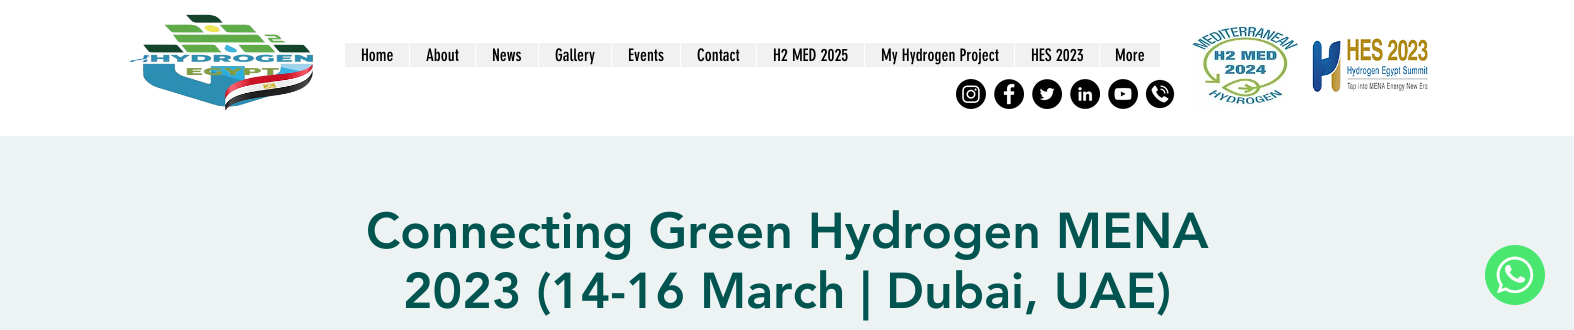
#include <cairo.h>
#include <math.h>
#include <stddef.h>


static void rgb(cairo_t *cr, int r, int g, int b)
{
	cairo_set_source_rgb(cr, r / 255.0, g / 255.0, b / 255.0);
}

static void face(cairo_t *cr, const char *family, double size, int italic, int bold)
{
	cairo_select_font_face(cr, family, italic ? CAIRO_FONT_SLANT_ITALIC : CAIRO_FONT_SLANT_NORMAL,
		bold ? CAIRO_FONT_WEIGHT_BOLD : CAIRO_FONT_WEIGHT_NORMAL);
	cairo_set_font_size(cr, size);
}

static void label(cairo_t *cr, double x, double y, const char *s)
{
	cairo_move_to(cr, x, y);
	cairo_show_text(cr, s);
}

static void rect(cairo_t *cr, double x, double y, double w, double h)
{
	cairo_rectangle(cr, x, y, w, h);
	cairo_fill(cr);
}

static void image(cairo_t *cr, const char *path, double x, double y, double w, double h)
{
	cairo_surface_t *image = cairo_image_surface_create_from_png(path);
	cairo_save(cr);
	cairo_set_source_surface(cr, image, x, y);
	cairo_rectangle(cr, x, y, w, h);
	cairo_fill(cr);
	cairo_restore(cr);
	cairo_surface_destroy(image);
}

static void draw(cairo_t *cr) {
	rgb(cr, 255, 255, 255);
	cairo_paint(cr);
	image(cr, "image0.png", 129, 14, 184, 97);
	rgb(cr, 241, 241, 241);
	rect(cr, 345, 43, 815, 24);
	face(cr, "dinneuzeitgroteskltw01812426", 17, 0, 0);
	rgb(cr, 0, 0, 0);
	label(cr, 361, 61, "Home");
	rgb(cr, 255, 255, 255);
	rect(cr, 409, 43, 1, 24);
	rgb(cr, 0, 0, 0);
	label(cr, 426, 61, "About");
	rgb(cr, 255, 255, 255);
	rect(cr, 475, 43, 1, 24);
	rgb(cr, 0, 0, 0);
	label(cr, 492, 61, "News");
	rgb(cr, 255, 255, 255);
	rect(cr, 538, 43, 1, 24);
	rgb(cr, 0, 0, 0);
	label(cr, 555, 61, "Gallery");
	rgb(cr, 255, 255, 255);
	rect(cr, 611, 43, 1, 24);
	rgb(cr, 0, 0, 0);
	label(cr, 628, 61, "Events");
	rgb(cr, 255, 255, 255);
	rect(cr, 680, 43, 1, 24);
	rgb(cr, 0, 0, 0);
	label(cr, 697, 61, "Contact");
	rgb(cr, 255, 255, 255);
	rect(cr, 756, 43, 1, 24);
	rgb(cr, 0, 0, 0);
	label(cr, 773, 61, "H2 MED 2025");
	rgb(cr, 255, 255, 255);
	rect(cr, 864, 43, 1, 24);
	rgb(cr, 0, 0, 0);
	label(cr, 881, 61, "My Hydrogen Project");
	rgb(cr, 255, 255, 255);
	rect(cr, 1014, 43, 1, 24);
	rgb(cr, 0, 0, 0);
	label(cr, 1031, 61, "HES 2023");
	rgb(cr, 255, 255, 255);
	rect(cr, 1099, 43, 1, 24);
	rgb(cr, 0, 0, 0);
	label(cr, 1115, 61, "More");
	image(cr, "image1.png", 1192, 23, 108, 84);
	image(cr, "image2.png", 1312, 38, 116, 54);
	image(cr, "image3.png", 956, 79, 30, 30);
	image(cr, "image4.png", 994, 79, 30, 30);
	image(cr, "image5.png", 1032, 79, 30, 30);
	image(cr, "image6.png", 1070, 79, 30, 30);
	image(cr, "image7.png", 1108, 79, 30, 30);
	image(cr, "image8.png", 1145, 79, 30, 30);
	rgb(cr, 236, 243, 242);
	rect(cr, 0, 136, 1574, 194);
	face(cr, "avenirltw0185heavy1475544 Black", 50, 0, 0);
	rgb(cr, 1, 84, 80);
	label(cr, 366, 248, "Connecting Green Hydrogen MENA");
	label(cr, 403, 308, "2023 (14-16 March | Dubai, UAE)");
	image(cr, "image9.png", 1485, 245, 60, 60);
}

int main(void) {
	cairo_surface_t *surface = cairo_image_surface_create(CAIRO_FORMAT_RGB24, 1574, 330);
	cairo_t *cr = cairo_create(surface);
	cairo_font_options_t *options = cairo_font_options_create();
	cairo_font_options_set_hint_metrics(options, CAIRO_HINT_METRICS_OFF);
	cairo_font_options_set_hint_style(options, CAIRO_HINT_STYLE_NONE);
	cairo_set_font_options(cr, options);
	cairo_set_miter_limit(cr, 4);
	draw(cr);
	cairo_surface_write_to_png(surface, "render.png");
	cairo_font_options_destroy(options);
	cairo_destroy(cr);
	cairo_surface_destroy(surface);
	return 0;
}
